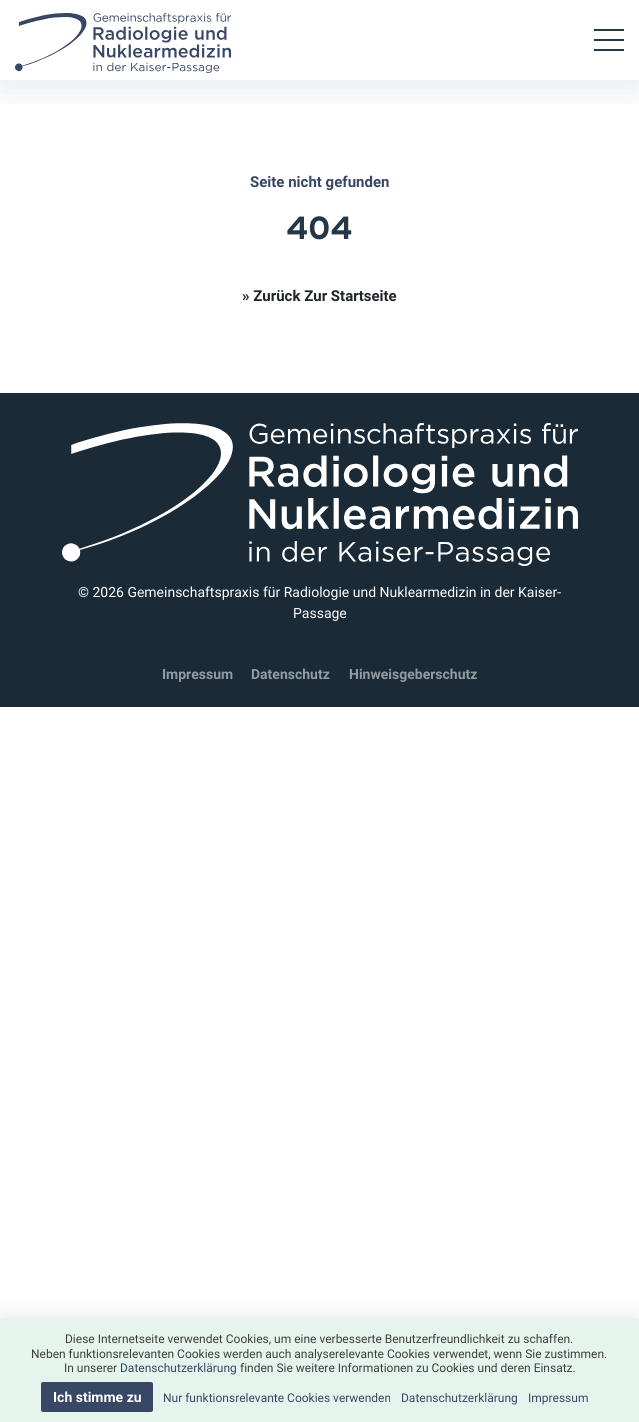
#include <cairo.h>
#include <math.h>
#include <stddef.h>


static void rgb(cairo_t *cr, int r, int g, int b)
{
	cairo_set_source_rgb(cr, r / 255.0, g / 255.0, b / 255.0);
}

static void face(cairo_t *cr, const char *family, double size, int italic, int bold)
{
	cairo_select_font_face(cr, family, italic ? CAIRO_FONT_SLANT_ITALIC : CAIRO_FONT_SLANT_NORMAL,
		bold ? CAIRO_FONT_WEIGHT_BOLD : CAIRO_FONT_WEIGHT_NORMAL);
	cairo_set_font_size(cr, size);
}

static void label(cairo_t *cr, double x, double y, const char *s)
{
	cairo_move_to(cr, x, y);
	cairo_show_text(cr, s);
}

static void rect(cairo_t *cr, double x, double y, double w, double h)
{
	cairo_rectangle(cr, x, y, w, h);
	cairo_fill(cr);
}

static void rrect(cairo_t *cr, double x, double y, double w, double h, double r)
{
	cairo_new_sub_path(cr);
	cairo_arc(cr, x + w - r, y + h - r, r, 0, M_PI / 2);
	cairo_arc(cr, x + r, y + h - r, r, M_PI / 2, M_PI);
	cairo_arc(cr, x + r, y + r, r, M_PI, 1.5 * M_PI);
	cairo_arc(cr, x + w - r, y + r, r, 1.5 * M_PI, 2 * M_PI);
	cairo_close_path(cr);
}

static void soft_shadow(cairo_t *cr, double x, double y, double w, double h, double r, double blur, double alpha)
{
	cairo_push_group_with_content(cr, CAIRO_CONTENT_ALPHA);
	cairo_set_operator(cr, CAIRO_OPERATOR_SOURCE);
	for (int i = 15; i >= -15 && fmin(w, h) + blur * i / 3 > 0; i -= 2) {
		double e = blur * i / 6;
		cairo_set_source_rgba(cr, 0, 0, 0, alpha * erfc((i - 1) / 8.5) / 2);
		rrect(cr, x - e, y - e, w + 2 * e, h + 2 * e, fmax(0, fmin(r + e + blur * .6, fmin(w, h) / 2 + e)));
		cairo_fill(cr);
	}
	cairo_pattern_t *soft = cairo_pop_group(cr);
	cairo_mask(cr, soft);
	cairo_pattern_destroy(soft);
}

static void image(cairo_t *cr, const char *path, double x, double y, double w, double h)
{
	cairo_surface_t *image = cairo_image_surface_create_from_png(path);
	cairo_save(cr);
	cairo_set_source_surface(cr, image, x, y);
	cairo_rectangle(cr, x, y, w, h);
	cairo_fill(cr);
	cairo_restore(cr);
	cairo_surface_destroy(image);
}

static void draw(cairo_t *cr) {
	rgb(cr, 255, 255, 255);
	cairo_paint(cr);
	cairo_save(cr);
	cairo_rectangle(cr, 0, 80, 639, 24);
	cairo_clip(cr);
	rgb(cr, 9, 29, 62);
	soft_shadow(cr, 0, 5, 639, 80, 0, 21, 0.11);
	cairo_restore(cr);
	image(cr, "image0.png", 15, 13, 216, 60);
	rgb(cr, 37, 55, 69);
	rect(cr, 594, 39, 30, 2);
	rect(cr, 594, 29, 30, 2);
	rect(cr, 594, 49, 30, 2);
	face(cr, "Roboto", 15, 0, 1);
	rgb(cr, 55, 71, 101);
	label(cr, 250, 187, "Seite nicht gefunden");
	face(cr, "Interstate", 32, 0, 1);
	rgb(cr, 37, 55, 69);
	label(cr, 286, 239, "404");
	face(cr, "Roboto", 15, 0, 1);
	rgb(cr, 33, 37, 41);
	label(cr, 242, 301, "» Zurück Zur Startseite");
	rgb(cr, 26, 42, 54);
	rect(cr, 0, 393, 639, 314);
	image(cr, "image1.png", 62, 423, 516, 143);
	face(cr, "Roboto", 14, 0, 0);
	rgb(cr, 255, 255, 255);
	label(cr, 78, 597, "© 2026 Gemeinschaftspraxis für Radiologie und Nuklearmedizin in der Kaiser-");
	label(cr, 293, 618, "Passage");
	face(cr, "Roboto", 14, 0, 1);
	rgb(cr, 146, 155, 162);
	label(cr, 162, 679, "Impressum");
	label(cr, 251, 679, "Datenschutz");
	label(cr, 349, 679, "Hinweisgeberschutz");
	rgb(cr, 0, 0, 0);
	soft_shadow(cr, 0, 1318, 639, 104, 0, 10, 0.1);
	rgb(cr, 229, 245, 237);
	rect(cr, 0, 1318, 639, 104);
	face(cr, "Roboto", 12, 0, 0);
	rgb(cr, 61, 61, 61);
	label(cr, 65, 1343, "Diese Internetseite verwendet Cookies, um eine verbesserte Benutzerfreundlichkeit zu schaffen.");
	label(cr, 31, 1358, "Neben funktionsrelevanten Cookies werden auch analyserelevante Cookies verwendet, wenn Sie zustimmen.");
	label(cr, 64, 1372, "In unserer");
	rgb(cr, 55, 71, 101);
	label(cr, 120, 1372, "Datenschutzerklärung");
	rgb(cr, 61, 61, 61);
	label(cr, 240, 1372, "finden Sie weitere Informationen zu Cookies und deren Einsatz.");
	rgb(cr, 55, 71, 101);
	rrect(cr, 41, 1382, 112, 30, 2);
	cairo_fill(cr);
	face(cr, "Roboto", 14, 0, 1);
	rgb(cr, 255, 255, 255);
	label(cr, 53, 1402, "Ich stimme zu");
	face(cr, "Roboto", 12, 0, 0);
	rgb(cr, 55, 71, 101);
	label(cr, 163, 1402, "Nur funktionsrelevante Cookies verwenden");
	label(cr, 401, 1402, "Datenschutzerklärung");
	label(cr, 528, 1402, "Impressum");
}

int main(void) {
	cairo_surface_t *surface = cairo_image_surface_create(CAIRO_FORMAT_RGB24, 639, 1422);
	cairo_t *cr = cairo_create(surface);
	cairo_font_options_t *options = cairo_font_options_create();
	cairo_font_options_set_hint_metrics(options, CAIRO_HINT_METRICS_OFF);
	cairo_font_options_set_hint_style(options, CAIRO_HINT_STYLE_NONE);
	cairo_set_font_options(cr, options);
	cairo_set_miter_limit(cr, 4);
	draw(cr);
	cairo_surface_write_to_png(surface, "render.png");
	cairo_font_options_destroy(options);
	cairo_destroy(cr);
	cairo_surface_destroy(surface);
	return 0;
}
